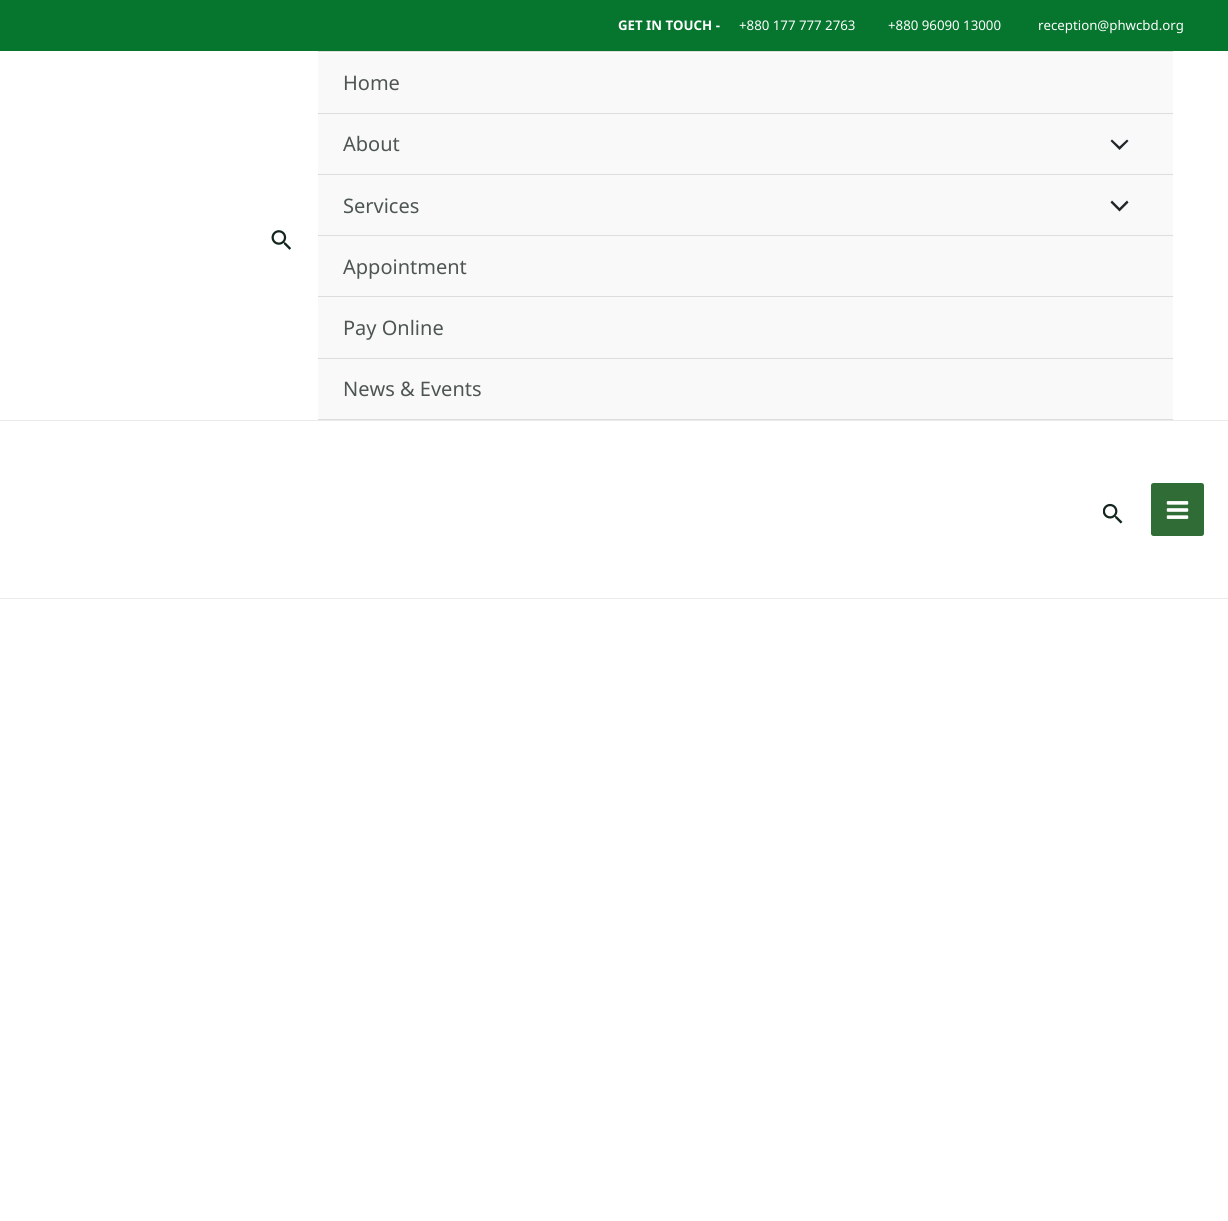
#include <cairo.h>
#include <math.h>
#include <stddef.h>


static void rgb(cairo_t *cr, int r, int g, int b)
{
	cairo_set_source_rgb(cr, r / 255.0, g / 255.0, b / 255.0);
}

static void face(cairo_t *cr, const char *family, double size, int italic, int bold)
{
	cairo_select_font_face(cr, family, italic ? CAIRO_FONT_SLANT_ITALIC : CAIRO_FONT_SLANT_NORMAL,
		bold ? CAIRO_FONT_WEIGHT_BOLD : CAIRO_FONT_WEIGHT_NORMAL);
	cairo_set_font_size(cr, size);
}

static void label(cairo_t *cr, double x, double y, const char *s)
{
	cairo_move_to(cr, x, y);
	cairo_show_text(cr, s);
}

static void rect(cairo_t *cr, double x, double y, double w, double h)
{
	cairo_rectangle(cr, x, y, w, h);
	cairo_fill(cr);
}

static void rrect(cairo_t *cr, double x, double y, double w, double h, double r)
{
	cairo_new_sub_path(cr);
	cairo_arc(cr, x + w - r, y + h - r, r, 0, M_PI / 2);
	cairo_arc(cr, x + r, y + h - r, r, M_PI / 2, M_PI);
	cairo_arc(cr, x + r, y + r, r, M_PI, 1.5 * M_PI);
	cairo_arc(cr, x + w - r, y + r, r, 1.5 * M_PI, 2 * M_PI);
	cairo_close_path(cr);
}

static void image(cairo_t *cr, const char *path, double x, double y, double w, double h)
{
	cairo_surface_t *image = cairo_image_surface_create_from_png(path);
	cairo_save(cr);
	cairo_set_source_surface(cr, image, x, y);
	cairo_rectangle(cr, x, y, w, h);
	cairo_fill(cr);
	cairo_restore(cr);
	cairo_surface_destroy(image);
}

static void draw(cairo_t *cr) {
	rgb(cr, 255, 255, 255);
	cairo_paint(cr);
	rgb(cr, 6, 117, 46);
	rect(cr, 0, 0, 1228, 51);
	face(cr, "Noto Sans", 13.25, 0, 1);
	rgb(cr, 255, 255, 255);
	label(cr, 618, 30, "GET IN TOUCH -");
	face(cr, "Noto Sans", 13.25, 0, 0);
	label(cr, 739, 30, "+880 177 777 2763");
	label(cr, 888, 30, "+880 96090 13000");
	label(cr, 1038, 30, "reception@phwcbd.org");
	rgb(cr, 234, 234, 234);
	rect(cr, 0, 420, 1228, 1);
	image(cr, "image0.png", 271, 230, 20, 20);
	rgb(cr, 249, 249, 249);
	rect(cr, 318, 53, 855, 366);
	rgb(cr, 221, 221, 221);
	rect(cr, 318, 51, 855, 1);
	rect(cr, 318, 113, 855, 1);
	face(cr, "Noto Sans", 20, 0, 0);
	rgb(cr, 78, 86, 82);
	label(cr, 343, 90, "Home");
	rgb(cr, 221, 221, 221);
	rect(cr, 318, 174, 855, 1);
	rgb(cr, 78, 86, 82);
	label(cr, 343, 151, "About");
	rgb(cr, 33, 37, 41);
	cairo_new_path(cr);
	cairo_move_to(cr, 1110.5, 141);
	cairo_line_to(cr, 1119.5, 150);
	cairo_line_to(cr, 1128.5, 141);
	cairo_line_to(cr, 1127, 139.5);
	cairo_line_to(cr, 1119.5, 146.5);
	cairo_line_to(cr, 1112, 139.5);
	cairo_close_path(cr);
	cairo_fill(cr);
	rgb(cr, 221, 221, 221);
	rect(cr, 318, 235, 855, 1);
	rgb(cr, 78, 86, 82);
	label(cr, 343, 213, "Services");
	rgb(cr, 33, 37, 41);
	cairo_new_path(cr);
	cairo_move_to(cr, 1110.5, 202.5);
	cairo_line_to(cr, 1119.5, 211.5);
	cairo_line_to(cr, 1128.5, 202.5);
	cairo_line_to(cr, 1127, 200.5);
	cairo_line_to(cr, 1119.5, 208);
	cairo_line_to(cr, 1112, 200.5);
	cairo_close_path(cr);
	cairo_fill(cr);
	rgb(cr, 221, 221, 221);
	rect(cr, 318, 296, 855, 1);
	rgb(cr, 78, 86, 82);
	label(cr, 343, 274, "Appointment");
	rgb(cr, 221, 221, 221);
	rect(cr, 318, 358, 855, 1);
	rgb(cr, 78, 86, 82);
	label(cr, 343, 335, "Pay Online");
	rgb(cr, 221, 221, 221);
	rect(cr, 318, 419, 855, 1);
	rgb(cr, 78, 86, 82);
	label(cr, 343, 396, "News & Events");
	rgb(cr, 234, 234, 234);
	rect(cr, 0, 598, 1228, 1);
	image(cr, "image1.png", 1103, 503, 20, 21);
	rgb(cr, 48, 109, 54);
	rrect(cr, 1151, 483, 53, 53, 2.5);
	cairo_fill(cr);
	image(cr, "image2.png", 1166, 501, 23, 18);
}

int main(void) {
	cairo_surface_t *surface = cairo_image_surface_create(CAIRO_FORMAT_RGB24, 1228, 1221);
	cairo_t *cr = cairo_create(surface);
	cairo_font_options_t *options = cairo_font_options_create();
	cairo_font_options_set_hint_metrics(options, CAIRO_HINT_METRICS_OFF);
	cairo_font_options_set_hint_style(options, CAIRO_HINT_STYLE_NONE);
	cairo_set_font_options(cr, options);
	cairo_set_miter_limit(cr, 4);
	draw(cr);
	cairo_surface_write_to_png(surface, "render.png");
	cairo_font_options_destroy(options);
	cairo_destroy(cr);
	cairo_surface_destroy(surface);
	return 0;
}
